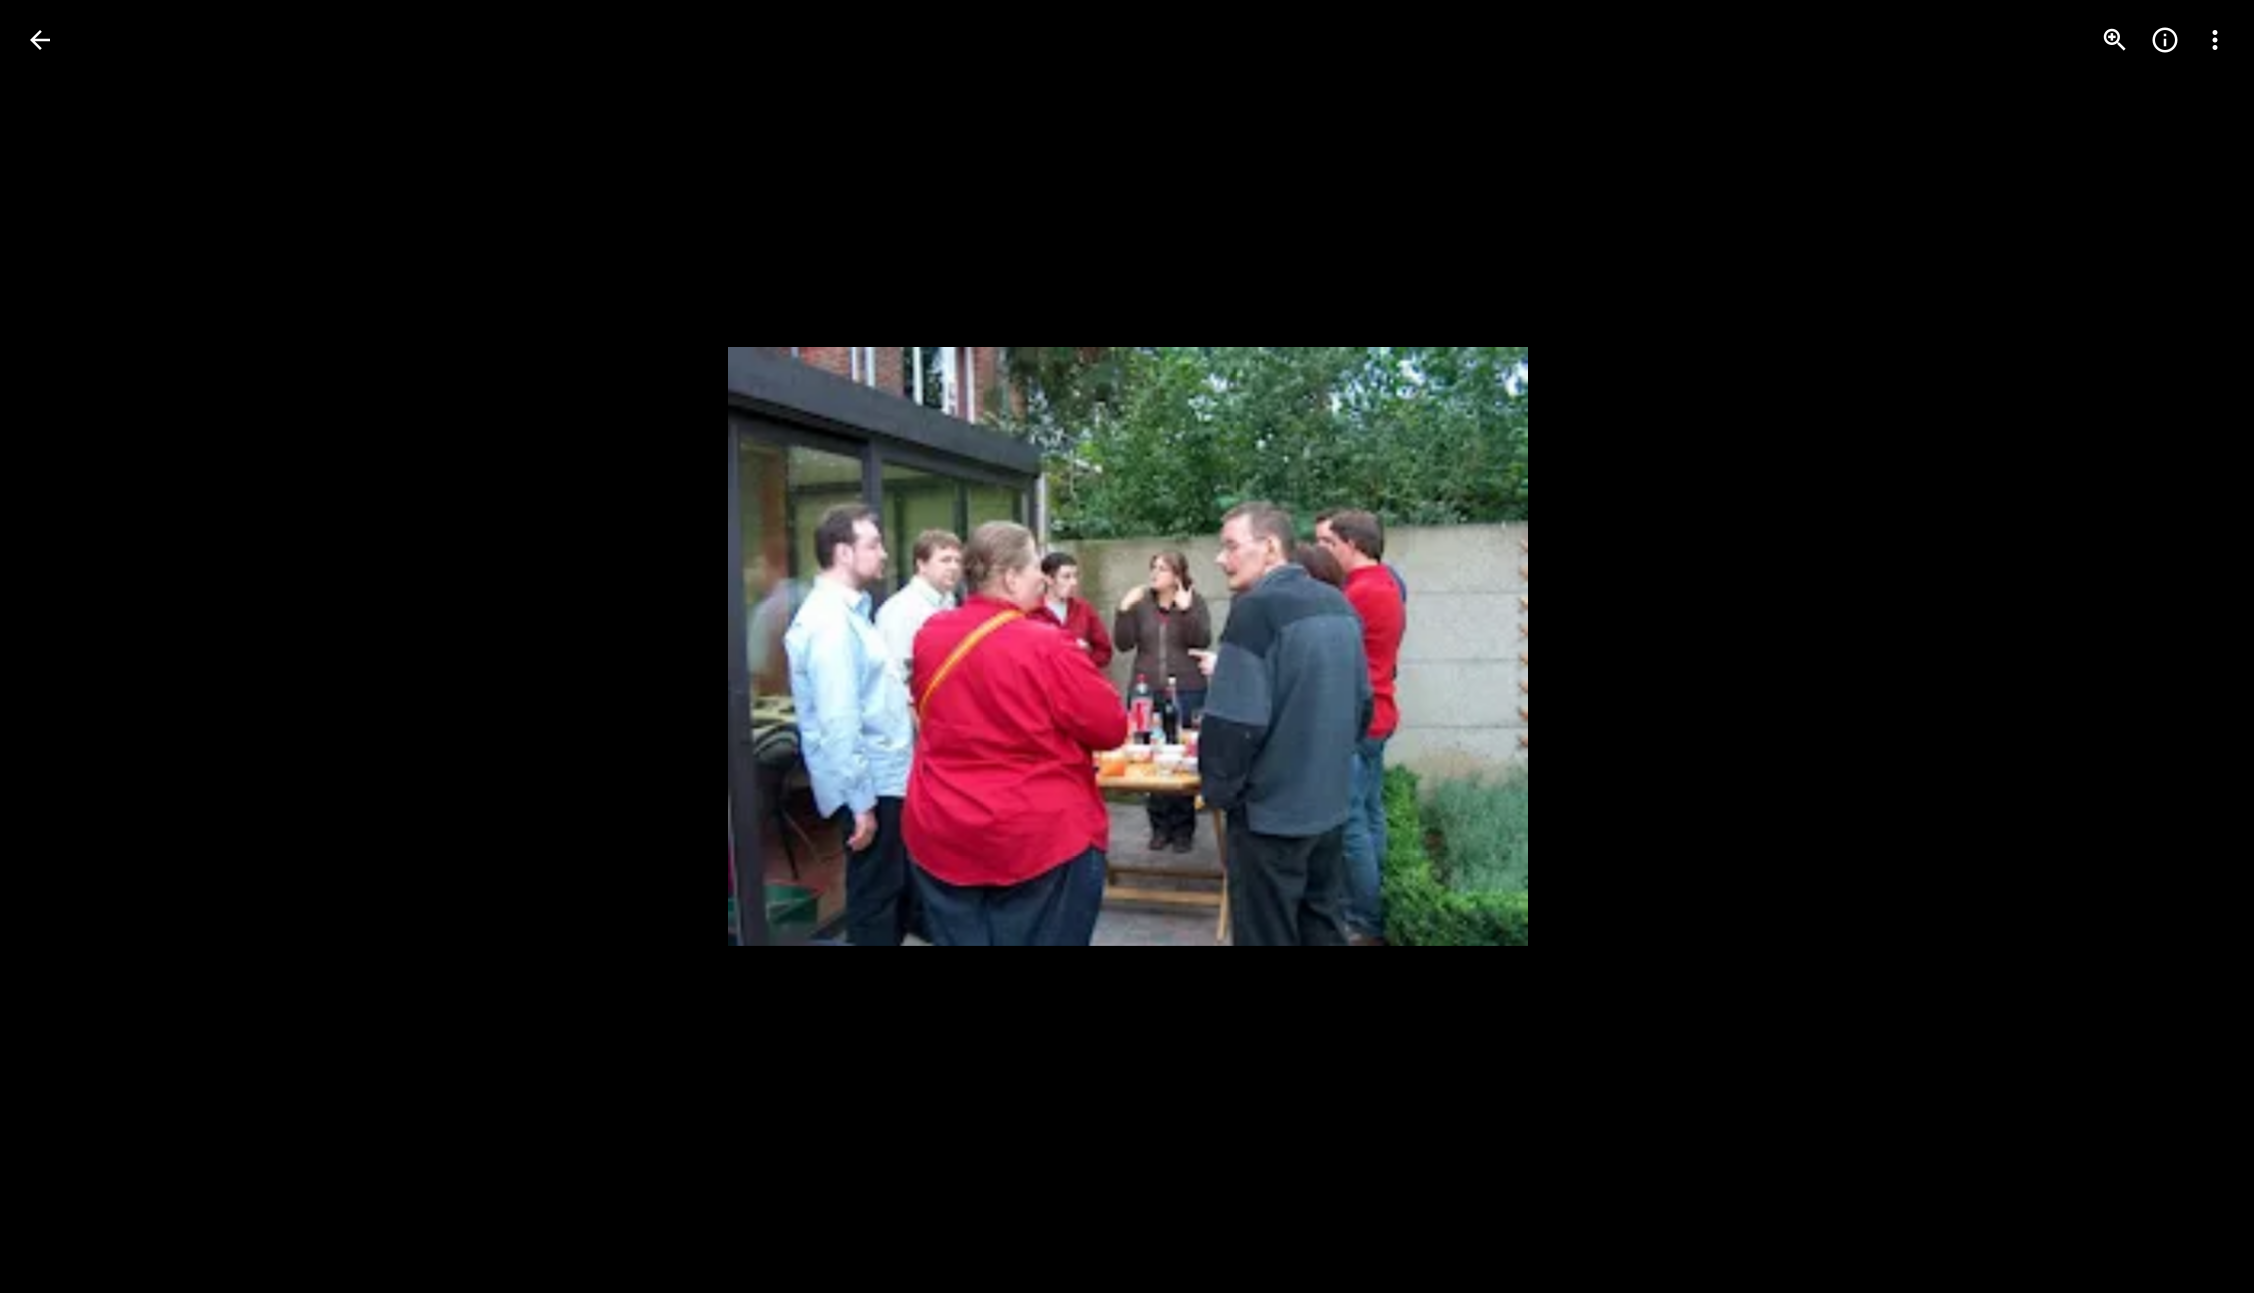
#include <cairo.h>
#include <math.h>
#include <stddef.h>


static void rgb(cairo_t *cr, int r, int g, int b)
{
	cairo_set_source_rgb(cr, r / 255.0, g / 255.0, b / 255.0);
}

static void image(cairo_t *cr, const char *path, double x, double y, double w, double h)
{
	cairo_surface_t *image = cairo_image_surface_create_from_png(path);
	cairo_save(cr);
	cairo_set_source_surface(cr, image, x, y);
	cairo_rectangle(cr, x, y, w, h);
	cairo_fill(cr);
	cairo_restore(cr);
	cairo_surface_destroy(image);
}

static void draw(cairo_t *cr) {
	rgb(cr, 0, 0, 0);
	cairo_paint(cr);
	image(cr, "image0.png", 30, 30, 20, 20);
	image(cr, "image1.png", 2103, 28, 23, 23);
	image(cr, "image2.png", 2152, 27, 26, 26);
	image(cr, "image3.png", 2212, 30, 6, 20);
	image(cr, "image4.png", 728, 347, 800, 599);
}

int main(void) {
	cairo_surface_t *surface = cairo_image_surface_create(CAIRO_FORMAT_RGB24, 2254, 1293);
	cairo_t *cr = cairo_create(surface);
	cairo_font_options_t *options = cairo_font_options_create();
	cairo_font_options_set_hint_metrics(options, CAIRO_HINT_METRICS_OFF);
	cairo_font_options_set_hint_style(options, CAIRO_HINT_STYLE_NONE);
	cairo_set_font_options(cr, options);
	cairo_set_miter_limit(cr, 4);
	draw(cr);
	cairo_surface_write_to_png(surface, "render.png");
	cairo_font_options_destroy(options);
	cairo_destroy(cr);
	cairo_surface_destroy(surface);
	return 0;
}
